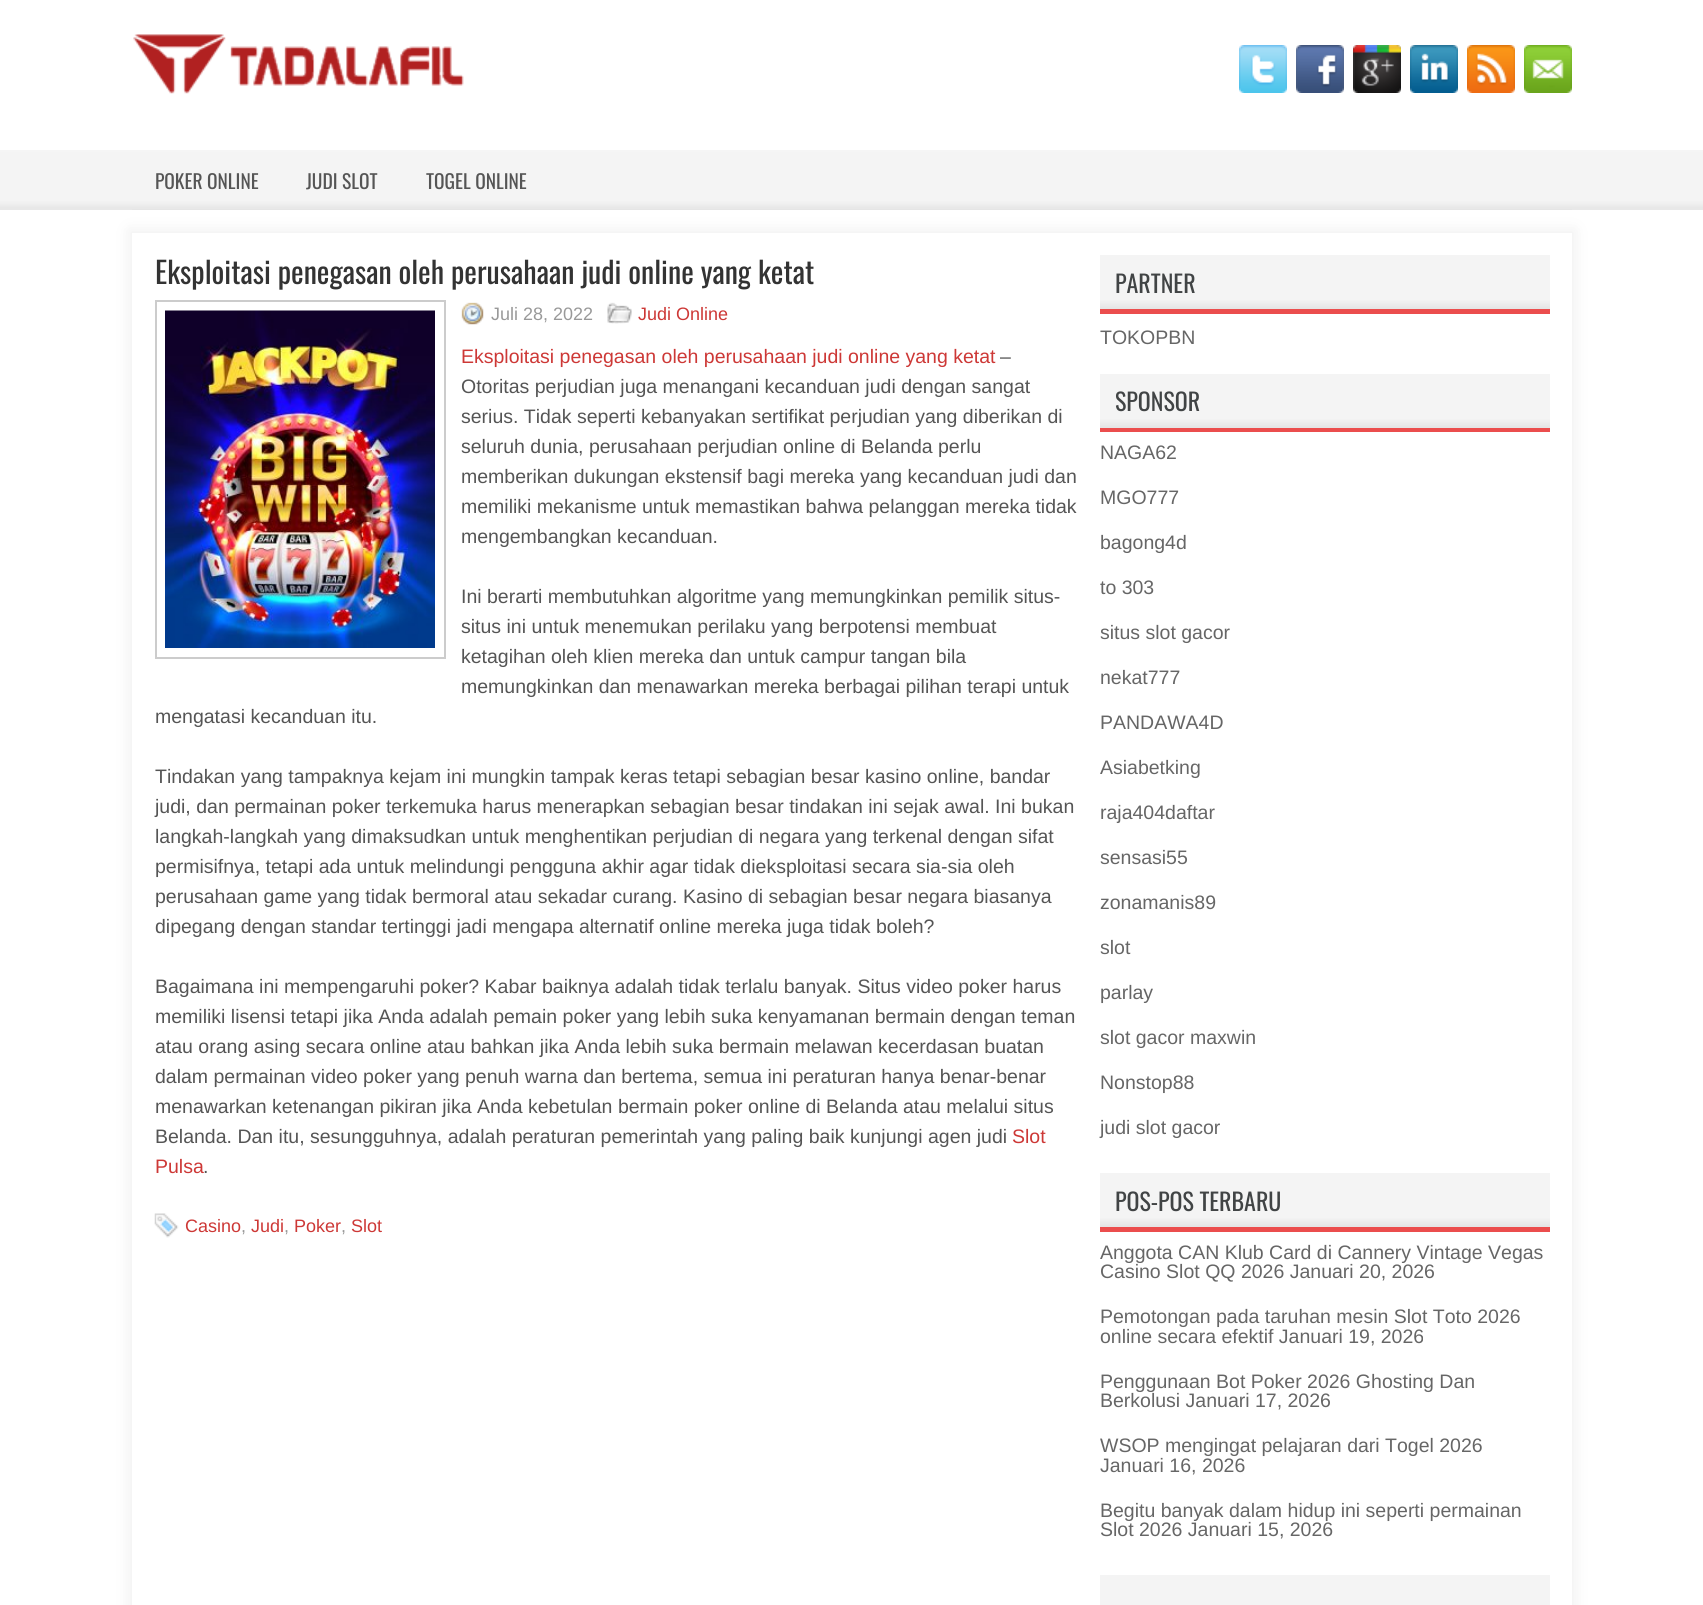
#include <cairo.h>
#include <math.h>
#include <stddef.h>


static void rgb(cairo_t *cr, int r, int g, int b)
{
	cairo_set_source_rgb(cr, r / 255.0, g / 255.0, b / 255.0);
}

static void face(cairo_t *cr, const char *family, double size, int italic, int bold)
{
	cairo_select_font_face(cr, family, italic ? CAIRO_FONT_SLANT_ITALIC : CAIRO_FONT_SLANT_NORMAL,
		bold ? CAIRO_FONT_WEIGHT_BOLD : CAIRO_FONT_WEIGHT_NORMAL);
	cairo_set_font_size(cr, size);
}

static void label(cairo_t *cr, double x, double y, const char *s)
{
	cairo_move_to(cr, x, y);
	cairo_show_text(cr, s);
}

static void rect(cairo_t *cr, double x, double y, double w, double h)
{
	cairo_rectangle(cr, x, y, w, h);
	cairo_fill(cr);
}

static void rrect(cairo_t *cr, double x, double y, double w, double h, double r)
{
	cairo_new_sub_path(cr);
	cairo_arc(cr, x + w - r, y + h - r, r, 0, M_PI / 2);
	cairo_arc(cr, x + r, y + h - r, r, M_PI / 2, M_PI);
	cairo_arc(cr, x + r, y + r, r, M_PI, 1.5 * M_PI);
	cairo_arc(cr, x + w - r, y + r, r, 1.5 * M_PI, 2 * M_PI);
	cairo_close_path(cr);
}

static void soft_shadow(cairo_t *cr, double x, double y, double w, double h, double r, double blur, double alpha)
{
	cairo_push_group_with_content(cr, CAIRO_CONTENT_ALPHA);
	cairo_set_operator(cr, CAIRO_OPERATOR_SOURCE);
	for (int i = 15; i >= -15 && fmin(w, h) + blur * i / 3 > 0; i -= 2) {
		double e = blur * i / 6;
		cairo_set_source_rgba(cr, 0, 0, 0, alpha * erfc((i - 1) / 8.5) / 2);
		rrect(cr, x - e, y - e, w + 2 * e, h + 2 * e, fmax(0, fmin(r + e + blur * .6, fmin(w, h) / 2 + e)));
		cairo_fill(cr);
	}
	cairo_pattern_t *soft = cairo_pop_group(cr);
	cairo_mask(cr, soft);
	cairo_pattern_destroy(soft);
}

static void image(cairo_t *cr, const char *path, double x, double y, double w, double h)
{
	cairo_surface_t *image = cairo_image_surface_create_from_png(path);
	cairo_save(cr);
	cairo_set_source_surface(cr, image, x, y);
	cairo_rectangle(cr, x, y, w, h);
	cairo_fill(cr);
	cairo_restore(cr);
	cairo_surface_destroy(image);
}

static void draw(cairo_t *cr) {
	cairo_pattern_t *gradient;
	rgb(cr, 255, 255, 255);
	cairo_paint(cr);
	image(cr, "image0.png", 0, 150, 1703, 60);
	image(cr, "image1.png", 133, 34, 331, 60);
	image(cr, "image2.png", 1239, 45, 48, 48);
	image(cr, "image3.png", 1296, 45, 48, 48);
	image(cr, "image4.png", 1353, 45, 48, 48);
	image(cr, "image5.png", 1410, 45, 48, 48);
	image(cr, "image6.png", 1467, 45, 48, 48);
	image(cr, "image7.png", 1524, 45, 48, 48);
	cairo_save(cr);
	cairo_set_fill_rule(cr, CAIRO_FILL_RULE_EVEN_ODD);
	cairo_new_path(cr);
	cairo_move_to(cr, 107, 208);
	cairo_line_to(cr, 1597, 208);
	cairo_line_to(cr, 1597, 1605);
	cairo_line_to(cr, 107, 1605);
	cairo_close_path(cr);
	cairo_move_to(cr, 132, 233);
	cairo_line_to(cr, 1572, 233);
	cairo_line_to(cr, 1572, 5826);
	cairo_line_to(cr, 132, 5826);
	cairo_close_path(cr);
	cairo_clip(cr);
	rgb(cr, 96, 96, 96);
	soft_shadow(cr, 129, 230, 1446, 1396, 0, 7, 0.1);
	cairo_restore(cr);
	gradient = cairo_pattern_create_linear(852, 210, 852, 150);
	cairo_pattern_add_color_stop_rgba(gradient, 0, 0.894, 0.894, 0.894, 1);
	cairo_pattern_add_color_stop_rgba(gradient, 0.18, 0.957, 0.957, 0.957, 1);
	cairo_pattern_add_color_stop_rgba(gradient, 1, 0.957, 0.957, 0.957, 1);
	cairo_set_source(cr, gradient);
	cairo_pattern_destroy(gradient);
	rect(cr, 132, 209, 1440, 1);
	face(cr, "Oswald", 19.5, 0, 0);
	rgb(cr, 85, 85, 85);
	label(cr, 155, 189, "POKER ONLINE");
	label(cr, 306, 189, "JUDI SLOT");
	label(cr, 426, 189, "TOGEL ONLINE");
	face(cr, "Oswald", 30, 0, 0);
	rgb(cr, 51, 51, 51);
	label(cr, 155, 284, "Eksploitasi penegasan oleh perusahaan judi online yang ketat");
	cairo_rectangle(cr, 156, 301, 289, 357);
	rgb(cr, 204, 204, 204);
	cairo_stroke(cr);
	image(cr, "image8.png", 165, 310, 270, 338);
	image(cr, "image9.png", 461, 302, 23, 23);
	face(cr, "Liberation Sans", 18, 0, 0);
	rgb(cr, 153, 153, 153);
	label(cr, 491, 320, "Juli 28, 2022");
	image(cr, "image10.png", 607, 302, 25, 22);
	rgb(cr, 205, 56, 54);
	label(cr, 638, 320, "Judi Online");
	face(cr, "Liberation Sans", 19.5, 0, 0);
	label(cr, 461, 363, "Eksploitasi penegasan oleh perusahaan judi online yang ketat");
	rgb(cr, 85, 85, 85);
	label(cr, 1000, 363, "–");
	label(cr, 461, 393, "Otoritas perjudian juga menangani kecanduan judi dengan sangat");
	label(cr, 461, 423, "serius. Tidak seperti kebanyakan sertifikat perjudian yang diberikan di");
	label(cr, 461, 453, "seluruh dunia, perusahaan perjudian online di Belanda perlu");
	label(cr, 461, 483, "memberikan dukungan ekstensif bagi mereka yang kecanduan judi dan");
	label(cr, 461, 513, "memiliki mekanisme untuk memastikan bahwa pelanggan mereka tidak");
	label(cr, 461, 543, "mengembangkan kecanduan.");
	label(cr, 461, 603, "Ini berarti membutuhkan algoritme yang memungkinkan pemilik situs-");
	label(cr, 461, 633, "situs ini untuk menemukan perilaku yang berpotensi membuat");
	label(cr, 461, 663, "ketagihan oleh klien mereka dan untuk campur tangan bila");
	label(cr, 461, 693, "memungkinkan dan menawarkan mereka berbagai pilihan terapi untuk");
	label(cr, 155, 723, "mengatasi kecanduan itu.");
	label(cr, 155, 783, "Tindakan yang tampaknya kejam ini mungkin tampak keras tetapi sebagian besar kasino online, bandar");
	label(cr, 155, 813, "judi, dan permainan poker terkemuka harus menerapkan sebagian besar tindakan ini sejak awal. Ini bukan");
	label(cr, 155, 843, "langkah-langkah yang dimaksudkan untuk menghentikan perjudian di negara yang terkenal dengan sifat");
	label(cr, 155, 873, "permisifnya, tetapi ada untuk melindungi pengguna akhir agar tidak dieksploitasi secara sia-sia oleh");
	label(cr, 155, 903, "perusahaan game yang tidak bermoral atau sekadar curang. Kasino di sebagian besar negara biasanya");
	label(cr, 155, 933, "dipegang dengan standar tertinggi jadi mengapa alternatif online mereka juga tidak boleh?");
	label(cr, 155, 993, "Bagaimana ini mempengaruhi poker? Kabar baiknya adalah tidak terlalu banyak. Situs video poker harus");
	label(cr, 155, 1023, "memiliki lisensi tetapi jika Anda adalah pemain poker yang lebih suka kenyamanan bermain dengan teman");
	label(cr, 155, 1053, "atau orang asing secara online atau bahkan jika Anda lebih suka bermain melawan kecerdasan buatan");
	label(cr, 155, 1083, "dalam permainan video poker yang penuh warna dan bertema, semua ini peraturan hanya benar-benar");
	label(cr, 155, 1113, "menawarkan ketenangan pikiran jika Anda kebetulan bermain poker online di Belanda atau melalui situs");
	label(cr, 155, 1143, "Belanda. Dan itu, sesungguhnya, adalah peraturan pemerintah yang paling baik kunjungi agen judi");
	rgb(cr, 205, 56, 54);
	label(cr, 1012, 1143, "Slot");
	label(cr, 155, 1173, "Pulsa");
	rgb(cr, 85, 85, 85);
	label(cr, 203, 1173, ".");
	image(cr, "image11.png", 154, 1213, 25, 25);
	face(cr, "Liberation Sans", 18, 0, 0);
	rgb(cr, 205, 56, 54);
	label(cr, 185, 1232, "Casino");
	rgb(cr, 153, 153, 153);
	label(cr, 241, 1232, ",");
	rgb(cr, 205, 56, 54);
	label(cr, 251, 1232, "Judi");
	rgb(cr, 153, 153, 153);
	label(cr, 284, 1232, ",");
	rgb(cr, 205, 56, 54);
	label(cr, 294, 1232, "Poker");
	rgb(cr, 153, 153, 153);
	label(cr, 341, 1232, ",");
	rgb(cr, 205, 56, 54);
	label(cr, 351, 1232, "Slot");
	rgb(cr, 235, 77, 77);
	cairo_new_path(cr);
	cairo_move_to(cr, 1100, 309);
	cairo_line_to(cr, 1100, 314);
	cairo_line_to(cr, 1550, 314);
	cairo_line_to(cr, 1550, 260);
	cairo_line_to(cr, 1550, 309);
	cairo_close_path(cr);
	cairo_fill(cr);
	gradient = cairo_pattern_create_linear(1325, 309, 1325, 255);
	cairo_pattern_add_color_stop_rgba(gradient, 0, 0.894, 0.894, 0.894, 1);
	cairo_pattern_add_color_stop_rgba(gradient, 0.18, 0.957, 0.957, 0.957, 1);
	cairo_pattern_add_color_stop_rgba(gradient, 1, 0.957, 0.957, 0.957, 1);
	cairo_set_source(cr, gradient);
	cairo_pattern_destroy(gradient);
	rect(cr, 1100, 255, 450, 54);
	face(cr, "Oswald", 24, 0, 0);
	rgb(cr, 65, 68, 69);
	label(cr, 1115, 293, "PARTNER");
	face(cr, "Liberation Sans", 19.5, 0, 0);
	rgb(cr, 102, 102, 102);
	label(cr, 1100, 344, "TOKOPBN");
	rgb(cr, 235, 77, 77);
	cairo_new_path(cr);
	cairo_move_to(cr, 1100, 428);
	cairo_line_to(cr, 1100, 432);
	cairo_line_to(cr, 1550, 432);
	cairo_line_to(cr, 1550, 378);
	cairo_line_to(cr, 1550, 428);
	cairo_close_path(cr);
	cairo_fill(cr);
	gradient = cairo_pattern_create_linear(1325, 428, 1325, 374);
	cairo_pattern_add_color_stop_rgba(gradient, 0, 0.894, 0.894, 0.894, 1);
	cairo_pattern_add_color_stop_rgba(gradient, 0.18, 0.957, 0.957, 0.957, 1);
	cairo_pattern_add_color_stop_rgba(gradient, 1, 0.957, 0.957, 0.957, 1);
	cairo_set_source(cr, gradient);
	cairo_pattern_destroy(gradient);
	rect(cr, 1100, 374, 450, 54);
	face(cr, "Oswald", 24, 0, 0);
	rgb(cr, 65, 68, 69);
	label(cr, 1115, 411, "SPONSOR");
	face(cr, "Liberation Sans", 19.5, 0, 0);
	rgb(cr, 102, 102, 102);
	label(cr, 1100, 459, "NAGA62");
	label(cr, 1100, 504, "MGO777");
	label(cr, 1100, 549, "bagong4d");
	label(cr, 1100, 594, "to 303");
	label(cr, 1100, 639, "situs slot gacor");
	label(cr, 1100, 684, "nekat777");
	label(cr, 1100, 729, "PANDAWA4D");
	label(cr, 1100, 774, "Asiabetking");
	label(cr, 1100, 819, "raja404daftar");
	label(cr, 1100, 864, "sensasi55");
	label(cr, 1100, 909, "zonamanis89");
	label(cr, 1100, 954, "slot");
	label(cr, 1100, 999, "parlay");
	label(cr, 1100, 1044, "slot gacor maxwin");
	label(cr, 1100, 1089, "Nonstop88");
	label(cr, 1100, 1134, "judi slot gacor");
	rgb(cr, 235, 77, 77);
	cairo_new_path(cr);
	cairo_move_to(cr, 1100, 1227);
	cairo_line_to(cr, 1100, 1232);
	cairo_line_to(cr, 1550, 1232);
	cairo_line_to(cr, 1550, 1178);
	cairo_line_to(cr, 1550, 1227);
	cairo_close_path(cr);
	cairo_fill(cr);
	gradient = cairo_pattern_create_linear(1325, 1227, 1325, 1173);
	cairo_pattern_add_color_stop_rgba(gradient, 0, 0.894, 0.894, 0.894, 1);
	cairo_pattern_add_color_stop_rgba(gradient, 0.18, 0.957, 0.957, 0.957, 1);
	cairo_pattern_add_color_stop_rgba(gradient, 1, 0.957, 0.957, 0.957, 1);
	cairo_set_source(cr, gradient);
	cairo_pattern_destroy(gradient);
	rect(cr, 1100, 1173, 450, 54);
	face(cr, "Oswald", 24, 0, 0);
	rgb(cr, 65, 68, 69);
	label(cr, 1115, 1211, "POS-POS TERBARU");
	face(cr, "Liberation Sans", 19.5, 0, 0);
	rgb(cr, 102, 102, 102);
	label(cr, 1100, 1259, "Anggota CAN Klub Card di Cannery Vintage Vegas");
	label(cr, 1100, 1278, "Casino Slot QQ 2026 Januari 20, 2026");
	label(cr, 1100, 1323, "Pemotongan pada taruhan mesin Slot Toto 2026");
	label(cr, 1100, 1343, "online secara efektif Januari 19, 2026");
	label(cr, 1100, 1388, "Penggunaan Bot Poker 2026 Ghosting Dan");
	label(cr, 1100, 1407, "Berkolusi Januari 17, 2026");
	label(cr, 1100, 1452, "WSOP mengingat pelajaran dari Togel 2026");
	label(cr, 1100, 1472, "Januari 16, 2026");
	label(cr, 1100, 1517, "Begitu banyak dalam hidup ini seperti permainan");
	label(cr, 1100, 1536, "Slot 2026 Januari 15, 2026");
	gradient = cairo_pattern_create_linear(1325, 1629, 1325, 1575);
	cairo_pattern_add_color_stop_rgba(gradient, 0, 0.894, 0.894, 0.894, 1);
	cairo_pattern_add_color_stop_rgba(gradient, 0.18, 0.957, 0.957, 0.957, 1);
	cairo_pattern_add_color_stop_rgba(gradient, 1, 0.957, 0.957, 0.957, 1);
	cairo_set_source(cr, gradient);
	cairo_pattern_destroy(gradient);
	rect(cr, 1100, 1575, 450, 30);
}

int main(void) {
	cairo_surface_t *surface = cairo_image_surface_create(CAIRO_FORMAT_RGB24, 1703, 1605);
	cairo_t *cr = cairo_create(surface);
	cairo_font_options_t *options = cairo_font_options_create();
	cairo_font_options_set_hint_metrics(options, CAIRO_HINT_METRICS_OFF);
	cairo_font_options_set_hint_style(options, CAIRO_HINT_STYLE_NONE);
	cairo_set_font_options(cr, options);
	cairo_set_miter_limit(cr, 4);
	draw(cr);
	cairo_surface_write_to_png(surface, "render.png");
	cairo_font_options_destroy(options);
	cairo_destroy(cr);
	cairo_surface_destroy(surface);
	return 0;
}
